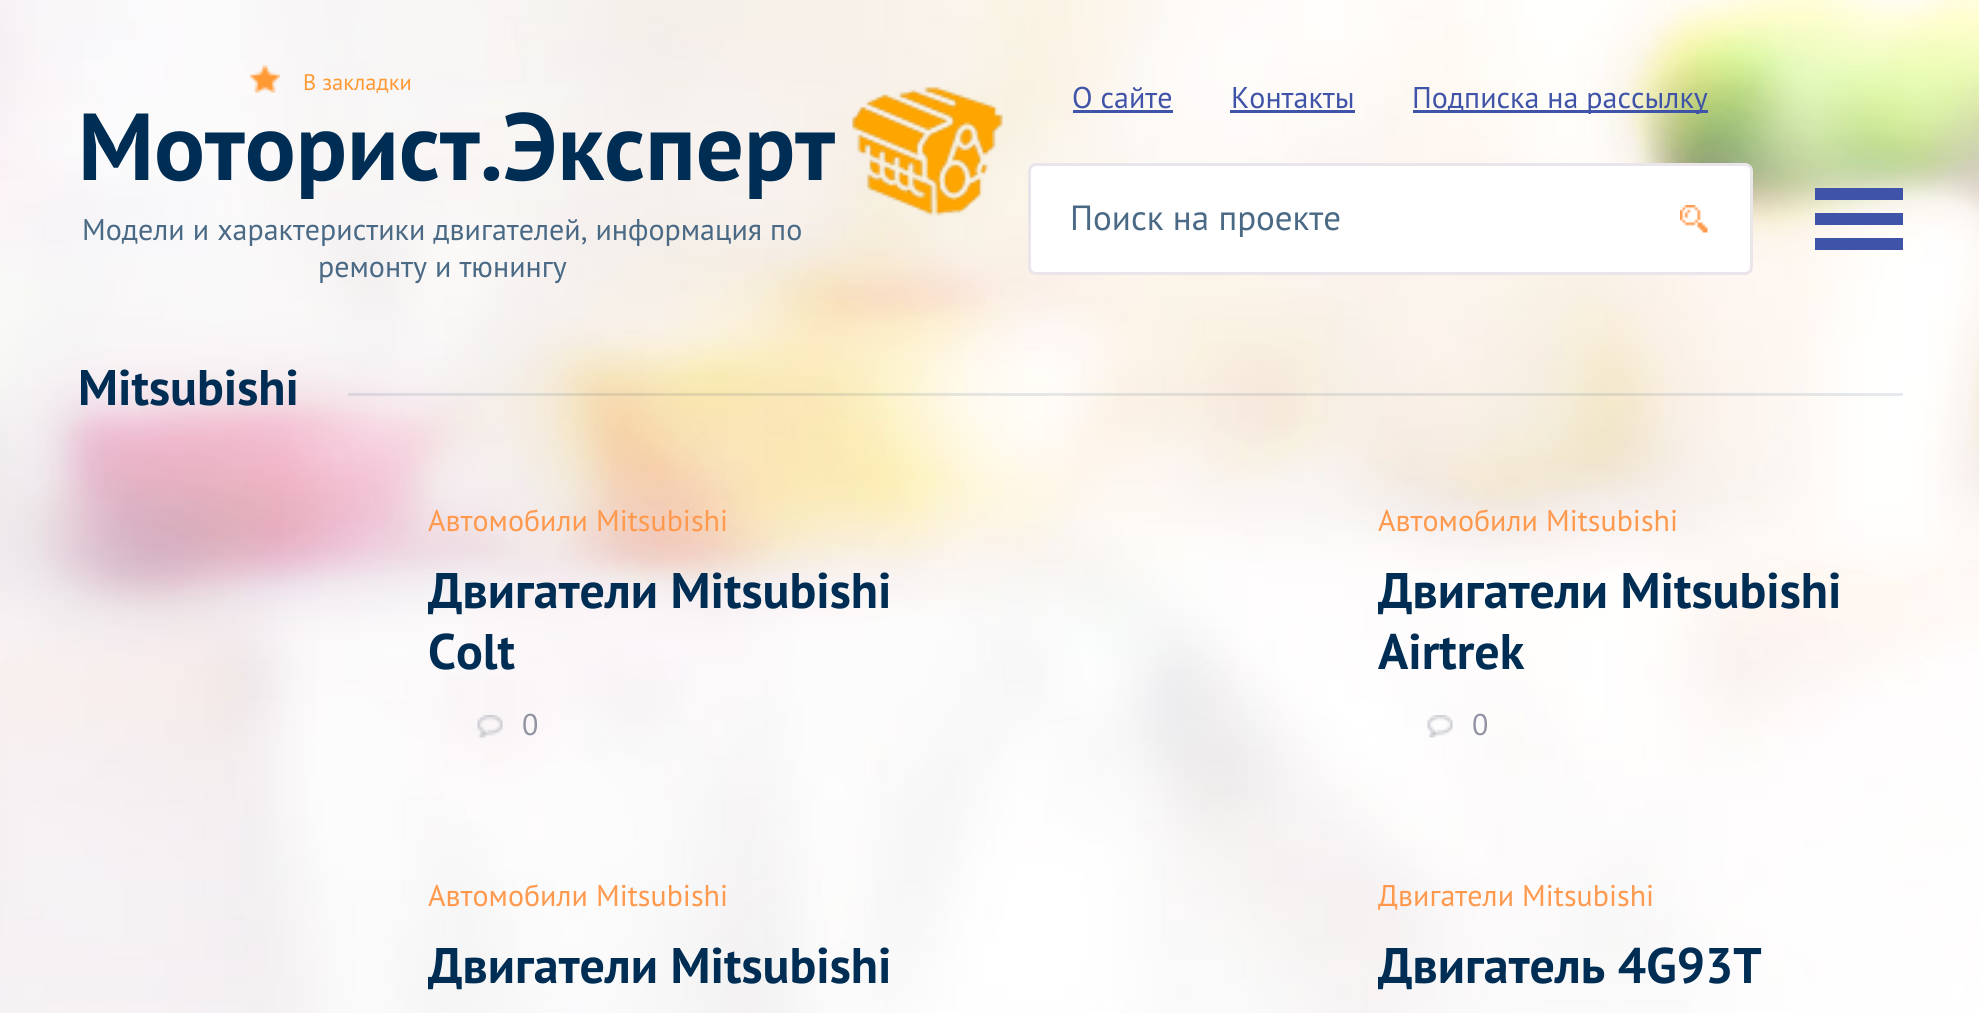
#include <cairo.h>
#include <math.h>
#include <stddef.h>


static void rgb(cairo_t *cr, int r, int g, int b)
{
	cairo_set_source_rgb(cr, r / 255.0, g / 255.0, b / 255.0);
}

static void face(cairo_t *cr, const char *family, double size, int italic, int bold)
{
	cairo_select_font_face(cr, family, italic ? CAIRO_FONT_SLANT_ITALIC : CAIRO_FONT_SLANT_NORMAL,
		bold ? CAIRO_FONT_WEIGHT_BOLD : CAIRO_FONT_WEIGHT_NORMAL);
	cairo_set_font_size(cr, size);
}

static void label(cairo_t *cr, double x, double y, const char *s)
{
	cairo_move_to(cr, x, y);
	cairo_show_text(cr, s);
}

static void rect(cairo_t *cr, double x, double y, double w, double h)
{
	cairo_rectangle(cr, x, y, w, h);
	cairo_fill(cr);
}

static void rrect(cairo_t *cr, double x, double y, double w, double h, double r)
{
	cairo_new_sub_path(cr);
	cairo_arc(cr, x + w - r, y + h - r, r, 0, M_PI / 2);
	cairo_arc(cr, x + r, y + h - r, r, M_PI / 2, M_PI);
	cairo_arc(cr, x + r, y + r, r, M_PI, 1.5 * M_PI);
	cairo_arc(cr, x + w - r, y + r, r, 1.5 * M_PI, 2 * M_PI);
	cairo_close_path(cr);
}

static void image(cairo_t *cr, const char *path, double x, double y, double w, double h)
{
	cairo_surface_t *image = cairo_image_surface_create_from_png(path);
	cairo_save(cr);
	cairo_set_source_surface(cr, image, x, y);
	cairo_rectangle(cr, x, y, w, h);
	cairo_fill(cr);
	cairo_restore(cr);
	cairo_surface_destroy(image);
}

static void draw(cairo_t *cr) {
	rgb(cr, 255, 255, 255);
	cairo_paint(cr);
	image(cr, "image0.png", 0, 0, 1979, 1013);
	image(cr, "image1.png", 250, 65, 30, 28);
	face(cr, "PT Sans", 22.5, 0, 0);
	rgb(cr, 255, 153, 52);
	label(cr, 303, 90, "В закладки");
	face(cr, "PT Sans", 30, 0, 0);
	rgb(cr, 63, 83, 168);
	label(cr, 1072, 108, "О сайте");
	rect(cr, 1073, 110, 100, 3);
	label(cr, 1231, 108, "Контакты");
	rect(cr, 1230, 110, 125, 3);
	rect(cr, 1413, 110, 295, 3);
	label(cr, 1412, 108, "Подписка на рассылку");
	image(cr, "image2.png", 852, 86, 151, 130);
	face(cr, "PT Sans", 95, 0, 1);
	rgb(cr, 0, 45, 84);
	label(cr, 78, 180, "Моторист.Эксперт");
	face(cr, "PT Sans", 30, 0, 0);
	rgb(cr, 74, 105, 133);
	label(cr, 82, 240, "Модели и характеристики двигателей, информация по");
	label(cr, 318, 277, "ремонту и тюнингу");
	rgb(cr, 255, 255, 255);
	rrect(cr, 1029.5, 164.5, 722, 109, 6.5);
	cairo_fill_preserve(cr);
	rgb(cr, 234, 229, 235);
	cairo_set_line_width(cr, 3);
	cairo_stroke(cr);
	face(cr, "PT Sans", 35, 0, 0);
	rgb(cr, 74, 105, 133);
	label(cr, 1070, 230, "Поиск на проекте");
	image(cr, "image3.png", 1680, 205, 28, 28);
	rgb(cr, 63, 83, 168);
	rect(cr, 1815, 188, 88, 12);
	rect(cr, 1815, 238, 88, 12);
	rect(cr, 1815, 213, 88, 12);
	face(cr, "PT Sans", 50, 0, 1);
	rgb(cr, 0, 45, 84);
	label(cr, 78, 405, "Mitsubishi");
	cairo_set_source_rgba(cr, 0, 0.18, 0.333, 0.1);
	rect(cr, 348, 393, 1555, 3);
	face(cr, "PT Sans", 30, 0, 0);
	rgb(cr, 255, 153, 77);
	label(cr, 428, 531, "Автомобили Mitsubishi");
	face(cr, "PT Sans", 50, 0, 1);
	rgb(cr, 0, 45, 84);
	label(cr, 428, 608, "Двигатели Mitsubishi");
	label(cr, 428, 669, "Colt");
	image(cr, "image4.png", 477, 715, 26, 23);
	face(cr, "PT Sans", 30, 0, 0);
	rgb(cr, 145, 147, 163);
	label(cr, 522, 735, "0");
	rgb(cr, 255, 153, 77);
	label(cr, 1378, 531, "Автомобили Mitsubishi");
	face(cr, "PT Sans", 50, 0, 1);
	rgb(cr, 0, 45, 84);
	label(cr, 1378, 608, "Двигатели Mitsubishi");
	label(cr, 1378, 669, "Airtrek");
	image(cr, "image5.png", 1427, 715, 26, 23);
	face(cr, "PT Sans", 30, 0, 0);
	rgb(cr, 145, 147, 163);
	label(cr, 1472, 735, "0");
	rgb(cr, 255, 153, 77);
	label(cr, 428, 906, "Автомобили Mitsubishi");
	face(cr, "PT Sans", 50, 0, 1);
	rgb(cr, 0, 45, 84);
	label(cr, 428, 983, "Двигатели Mitsubishi");
	face(cr, "PT Sans", 30, 0, 0);
	rgb(cr, 255, 153, 77);
	label(cr, 1378, 906, "Двигатели Mitsubishi");
	face(cr, "PT Sans", 50, 0, 1);
	rgb(cr, 0, 45, 84);
	label(cr, 1378, 983, "Двигатель 4G93T");
}

int main(void) {
	cairo_surface_t *surface = cairo_image_surface_create(CAIRO_FORMAT_RGB24, 1979, 1013);
	cairo_t *cr = cairo_create(surface);
	cairo_font_options_t *options = cairo_font_options_create();
	cairo_font_options_set_hint_metrics(options, CAIRO_HINT_METRICS_OFF);
	cairo_font_options_set_hint_style(options, CAIRO_HINT_STYLE_NONE);
	cairo_set_font_options(cr, options);
	cairo_set_miter_limit(cr, 4);
	draw(cr);
	cairo_surface_write_to_png(surface, "render.png");
	cairo_font_options_destroy(options);
	cairo_destroy(cr);
	cairo_surface_destroy(surface);
	return 0;
}
